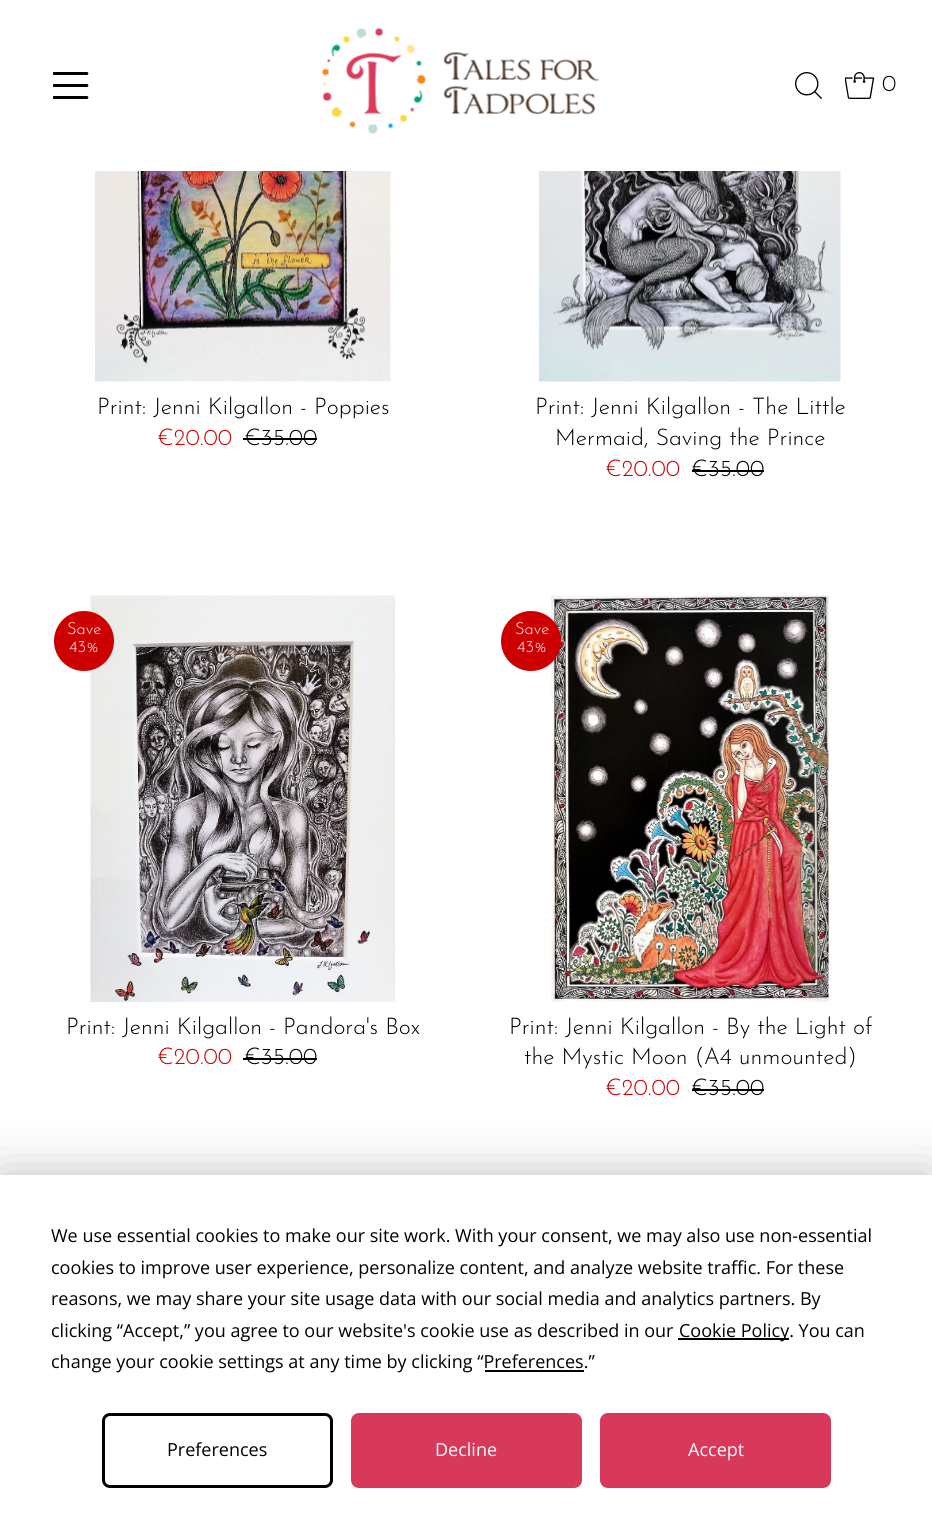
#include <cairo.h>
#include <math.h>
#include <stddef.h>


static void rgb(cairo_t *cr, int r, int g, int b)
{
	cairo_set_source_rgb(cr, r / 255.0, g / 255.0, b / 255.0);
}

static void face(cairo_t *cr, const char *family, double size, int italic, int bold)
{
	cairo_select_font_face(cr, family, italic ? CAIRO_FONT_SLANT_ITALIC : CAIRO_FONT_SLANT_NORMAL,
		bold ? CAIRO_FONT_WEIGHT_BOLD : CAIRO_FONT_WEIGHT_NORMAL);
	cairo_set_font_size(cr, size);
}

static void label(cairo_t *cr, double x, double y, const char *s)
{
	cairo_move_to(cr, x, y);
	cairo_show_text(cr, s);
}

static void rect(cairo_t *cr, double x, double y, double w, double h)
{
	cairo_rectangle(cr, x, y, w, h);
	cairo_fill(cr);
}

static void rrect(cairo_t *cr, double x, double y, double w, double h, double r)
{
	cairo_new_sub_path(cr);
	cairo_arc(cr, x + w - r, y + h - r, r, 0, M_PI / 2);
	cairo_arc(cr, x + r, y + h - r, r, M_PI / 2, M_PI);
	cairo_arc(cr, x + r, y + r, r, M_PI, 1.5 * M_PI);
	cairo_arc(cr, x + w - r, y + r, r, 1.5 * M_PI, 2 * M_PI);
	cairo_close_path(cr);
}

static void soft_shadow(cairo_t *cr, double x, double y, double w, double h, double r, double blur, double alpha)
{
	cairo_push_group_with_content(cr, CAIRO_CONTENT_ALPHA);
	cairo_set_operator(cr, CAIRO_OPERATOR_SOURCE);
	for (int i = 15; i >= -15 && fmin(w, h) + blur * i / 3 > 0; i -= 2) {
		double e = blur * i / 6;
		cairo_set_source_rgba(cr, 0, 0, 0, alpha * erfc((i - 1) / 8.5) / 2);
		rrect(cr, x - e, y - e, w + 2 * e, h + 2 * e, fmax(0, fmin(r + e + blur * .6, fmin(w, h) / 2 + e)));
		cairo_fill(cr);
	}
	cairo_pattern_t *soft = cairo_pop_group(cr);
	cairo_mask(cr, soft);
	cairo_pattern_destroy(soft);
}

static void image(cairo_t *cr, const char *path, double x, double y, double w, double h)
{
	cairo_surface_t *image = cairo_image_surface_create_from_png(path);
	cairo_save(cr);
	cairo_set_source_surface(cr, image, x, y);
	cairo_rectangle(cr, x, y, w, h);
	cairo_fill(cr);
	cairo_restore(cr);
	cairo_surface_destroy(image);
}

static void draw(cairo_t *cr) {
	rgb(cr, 255, 255, 255);
	cairo_paint(cr);
	image(cr, "image0.png", 53, 72, 36, 27);
	image(cr, "image1.png", 322, 28, 277, 106);
	image(cr, "image2.png", 795, 72, 27, 27);
	image(cr, "image3.png", 845, 72, 30, 27);
	face(cr, "Josefin Sans Light", 23, 0, 0);
	rgb(cr, 0, 0, 0);
	label(cr, 882, 91, "0");
	image(cr, "image4.png", 95, 171, 296, 211);
	label(cr, 97, 414, "Print: Jenni Kilgallon - Poppies");
	rgb(cr, 204, 0, 0);
	label(cr, 157, 445, "€20.00");
	rgb(cr, 0, 0, 0);
	label(cr, 244, 445, "€35.00");
	rect(cr, 243, 438, 74, 2);
	image(cr, "image5.png", 539, 171, 302, 211);
	label(cr, 535, 414, "Print: Jenni Kilgallon - The Little");
	label(cr, 555, 445, "Mermaid, Saving the Prince");
	rgb(cr, 204, 0, 0);
	label(cr, 605, 476, "€20.00");
	rgb(cr, 0, 0, 0);
	label(cr, 691, 476, "€35.00");
	rect(cr, 692, 470, 72, 2);
	image(cr, "image6.png", 90, 595, 305, 407);
	rgb(cr, 204, 0, 0);
	cairo_arc(cr, 84, 641, 30, 0, 2 * M_PI);
	cairo_fill(cr);
	face(cr, "Josefin Sans Light", 16.5, 0, 0);
	rgb(cr, 255, 255, 255);
	label(cr, 67, 634, "Save");
	label(cr, 69, 652, "43%");
	face(cr, "Josefin Sans Light", 23, 0, 0);
	rgb(cr, 0, 0, 0);
	label(cr, 66, 1034, "Print: Jenni Kilgallon - Pandora's Box");
	rgb(cr, 204, 0, 0);
	label(cr, 157, 1064, "€20.00");
	rgb(cr, 0, 0, 0);
	label(cr, 244, 1064, "€35.00");
	rect(cr, 243, 1058, 74, 2);
	image(cr, "image7.png", 551, 595, 278, 407);
	rgb(cr, 204, 0, 0);
	cairo_arc(cr, 531, 641, 30, 0, 2 * M_PI);
	cairo_fill(cr);
	face(cr, "Josefin Sans Light", 16.5, 0, 0);
	rgb(cr, 255, 255, 255);
	label(cr, 515, 634, "Save");
	label(cr, 517, 652, "43%");
	face(cr, "Josefin Sans Light", 23, 0, 0);
	rgb(cr, 0, 0, 0);
	label(cr, 509, 1034, "Print: Jenni Kilgallon - By the Light of");
	label(cr, 524, 1064, "the Mystic Moon (A4 unmounted)");
	rgb(cr, 204, 0, 0);
	label(cr, 605, 1095, "€20.00");
	rgb(cr, 0, 0, 0);
	label(cr, 691, 1095, "€35.00");
	rect(cr, 692, 1089, 72, 2);
	rgb(cr, 0, 0, 0);
	soft_shadow(cr, 0, 1175, 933, 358, 0, 26, 0.25);
	rgb(cr, 255, 255, 255);
	rect(cr, 0, 1175, 932, 357);
	face(cr, "Open Sans", 18, 0, 0);
	rgb(cr, 0, 0, 0);
	label(cr, 51, 1242, "We use essential cookies to make our site work. With your consent, we may also use non-essential");
	label(cr, 51, 1274, "cookies to improve user experience, personalize content, and analyze website traffic. For these");
	label(cr, 51, 1305, "reasons, we may share your site usage data with our social media and analytics partners. By");
	label(cr, 51, 1337, "clicking “Accept,” you agree to our website's cookie use as described in our");
	rect(cr, 678, 1338, 111, 2);
	label(cr, 679, 1337, "Cookie Policy. You can");
	label(cr, 51, 1368, "change your cookie settings at any time by clicking “Preferences.”");
	rect(cr, 485, 1370, 99, 2);
	rrect(cr, 103.5, 1414.5, 228, 72, 6.5);
	cairo_set_line_width(cr, 3);
	cairo_stroke(cr);
	label(cr, 167, 1456, "Preferences");
	rgb(cr, 216, 56, 90);
	rrect(cr, 351, 1413, 231, 75, 8);
	cairo_fill(cr);
	rgb(cr, 255, 255, 255);
	label(cr, 435, 1456, "Decline");
	rgb(cr, 216, 56, 90);
	rrect(cr, 600, 1413, 231, 75, 8);
	cairo_fill(cr);
	rgb(cr, 255, 255, 255);
	label(cr, 688, 1456, "Accept");
}

int main(void) {
	cairo_surface_t *surface = cairo_image_surface_create(CAIRO_FORMAT_RGB24, 932, 1532);
	cairo_t *cr = cairo_create(surface);
	cairo_font_options_t *options = cairo_font_options_create();
	cairo_font_options_set_hint_metrics(options, CAIRO_HINT_METRICS_OFF);
	cairo_font_options_set_hint_style(options, CAIRO_HINT_STYLE_NONE);
	cairo_set_font_options(cr, options);
	cairo_set_miter_limit(cr, 4);
	draw(cr);
	cairo_surface_write_to_png(surface, "render.png");
	cairo_font_options_destroy(options);
	cairo_destroy(cr);
	cairo_surface_destroy(surface);
	return 0;
}
